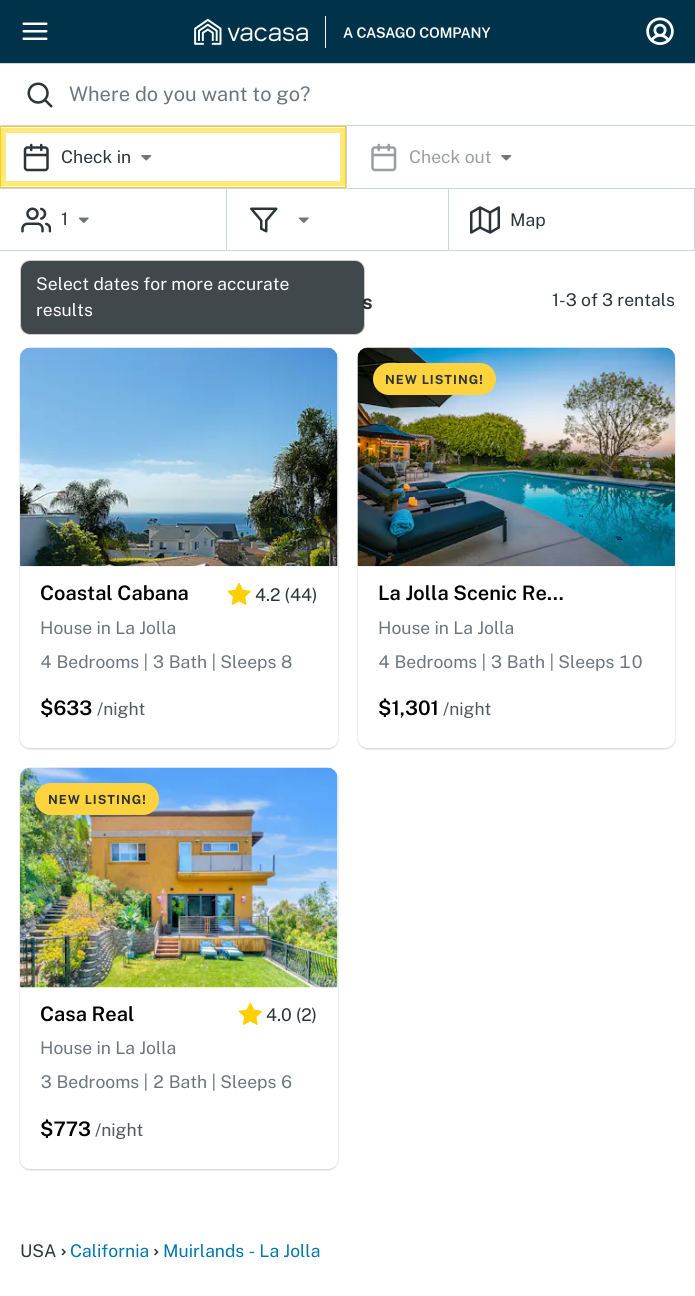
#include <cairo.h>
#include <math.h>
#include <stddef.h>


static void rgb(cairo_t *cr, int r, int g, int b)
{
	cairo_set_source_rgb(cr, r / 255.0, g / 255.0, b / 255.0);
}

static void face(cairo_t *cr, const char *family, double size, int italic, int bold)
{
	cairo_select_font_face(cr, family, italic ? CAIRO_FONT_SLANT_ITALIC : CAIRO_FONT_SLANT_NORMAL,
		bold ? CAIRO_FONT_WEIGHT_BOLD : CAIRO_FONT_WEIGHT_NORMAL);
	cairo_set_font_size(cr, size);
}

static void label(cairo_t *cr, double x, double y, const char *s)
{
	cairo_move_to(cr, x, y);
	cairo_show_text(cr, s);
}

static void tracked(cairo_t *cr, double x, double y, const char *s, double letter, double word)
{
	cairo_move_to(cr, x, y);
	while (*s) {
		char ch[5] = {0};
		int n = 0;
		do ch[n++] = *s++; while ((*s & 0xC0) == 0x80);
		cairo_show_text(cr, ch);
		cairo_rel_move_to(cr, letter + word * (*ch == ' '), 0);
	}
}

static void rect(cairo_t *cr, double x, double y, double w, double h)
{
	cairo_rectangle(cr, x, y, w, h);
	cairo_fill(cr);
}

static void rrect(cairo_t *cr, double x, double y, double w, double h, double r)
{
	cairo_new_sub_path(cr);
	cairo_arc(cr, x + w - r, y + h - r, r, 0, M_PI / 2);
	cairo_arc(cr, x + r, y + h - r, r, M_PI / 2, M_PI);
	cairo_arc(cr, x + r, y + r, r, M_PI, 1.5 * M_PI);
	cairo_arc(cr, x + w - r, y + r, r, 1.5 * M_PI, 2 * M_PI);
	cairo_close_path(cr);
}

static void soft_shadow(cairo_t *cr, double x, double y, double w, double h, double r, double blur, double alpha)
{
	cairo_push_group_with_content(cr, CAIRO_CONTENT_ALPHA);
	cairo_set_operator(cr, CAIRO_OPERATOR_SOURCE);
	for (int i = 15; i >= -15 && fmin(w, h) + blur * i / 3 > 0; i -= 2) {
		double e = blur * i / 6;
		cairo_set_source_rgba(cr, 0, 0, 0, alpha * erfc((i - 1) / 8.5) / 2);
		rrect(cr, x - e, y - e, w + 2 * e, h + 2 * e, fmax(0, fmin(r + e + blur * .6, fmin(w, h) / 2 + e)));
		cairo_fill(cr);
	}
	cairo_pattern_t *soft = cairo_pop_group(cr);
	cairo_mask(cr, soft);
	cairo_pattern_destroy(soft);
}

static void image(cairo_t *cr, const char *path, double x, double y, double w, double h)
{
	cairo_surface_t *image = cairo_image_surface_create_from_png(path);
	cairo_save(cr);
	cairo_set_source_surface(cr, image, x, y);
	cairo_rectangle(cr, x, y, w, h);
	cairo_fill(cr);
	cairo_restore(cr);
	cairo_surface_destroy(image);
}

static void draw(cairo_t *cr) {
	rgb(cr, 0, 51, 73);
	cairo_paint(cr);
	image(cr, "image0.png", 22, 22, 26, 18);
	image(cr, "image1.png", 194, 16, 297, 32);
	image(cr, "image2.png", 646, 17, 28, 28);
	rgb(cr, 255, 255, 255);
	rect(cr, 0, 64, 695, 186);
	rgb(cr, 204, 214, 219);
	rect(cr, 0, 250, 695, 1);
	rect(cr, 0, 63, 695, 1);
	image(cr, "image3.png", 27, 82, 26, 26);
	face(cr, "Public Sans", 20, 0, 0);
	rgb(cr, 108, 117, 125);
	label(cr, 69, 101, "Where do you want to go?");
	rgb(cr, 204, 214, 219);
	rect(cr, 0, 125, 695, 1);
	rect(cr, 346, 126, 1, 62);
	cairo_rectangle(cr, 3.5, 130.5, 339, 53);
	rgb(cr, 255, 232, 128);
	cairo_set_line_width(cr, 5);
	cairo_stroke(cr);
	cairo_rectangle(cr, 0.5, 126.5, 345, 61);
	rgb(cr, 255, 208, 0);
	cairo_set_line_width(cr, 1);
	cairo_stroke(cr);
	image(cr, "image4.png", 23, 143, 26, 29);
	face(cr, "Public Sans", 17.5, 0, 0);
	rgb(cr, 44, 52, 57);
	label(cr, 61, 163, "Check in");
	image(cr, "image5.png", 141, 155, 11, 6);
	image(cr, "image6.png", 371, 143, 26, 29);
	rgb(cr, 155, 158, 160);
	label(cr, 409, 163, "Check out");
	image(cr, "image5.png", 501, 155, 11, 6);
	rgb(cr, 204, 214, 219);
	rect(cr, 0, 188, 695, 1);
	rect(cr, 226, 189, 1, 61);
	image(cr, "image7.png", 21, 207, 30, 26);
	rgb(cr, 44, 52, 57);
	label(cr, 61, 225, "1");
	image(cr, "image8.png", 78, 217, 11, 7);
	rgb(cr, 204, 214, 219);
	rect(cr, 448, 189, 1, 61);
	image(cr, "image9.png", 250, 207, 28, 26);
	image(cr, "image8.png", 298, 217, 11, 7);
	rect(cr, 694, 189, 1, 61);
	image(cr, "image10.png", 470, 206, 30, 28);
	rgb(cr, 44, 52, 57);
	label(cr, 510, 226, "Map");
	rgb(cr, 255, 255, 255);
	rect(cr, 0, 251, 695, 1045);
	face(cr, "Public Sans", 20, 0, 1);
	rgb(cr, 44, 52, 57);
	label(cr, 362, 309, "s");
	face(cr, "Public Sans", 17.5, 0, 0);
	label(cr, 552, 306, "1-3 of 3 rentals");
	rgb(cr, 0, 0, 0);
	soft_shadow(cr, 20, 349, 318, 400, 10, 1, 0.2);
	rgb(cr, 255, 255, 255);
	rrect(cr, 20, 348, 318, 400, 10);
	cairo_fill(cr);
	image(cr, "image11.png", 20, 347, 318, 220);
	face(cr, "Public Sans SemiBold", 20, 0, 0);
	rgb(cr, 0, 0, 0);
	label(cr, 40, 600, "Coastal Cabana");
	image(cr, "image12.png", 227, 582, 24, 23);
	face(cr, "Public Sans", 17.5, 0, 0);
	rgb(cr, 44, 52, 57);
	label(cr, 255, 601, "4.2 (44)");
	rgb(cr, 108, 117, 125);
	label(cr, 40, 634, "House in La Jolla");
	face(cr, "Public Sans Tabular", 17.5, 0, 0);
	label(cr, 40, 668, "4 Bedrooms | 3 Bath | Sleeps 8");
	face(cr, "Public Sans SemiBold", 20, 0, 0);
	rgb(cr, 0, 0, 0);
	label(cr, 40, 715, "$633");
	face(cr, "Public Sans", 17.5, 0, 0);
	rgb(cr, 81, 88, 92);
	label(cr, 97, 715, "/night");
	rgb(cr, 0, 0, 0);
	soft_shadow(cr, 358, 349, 317, 400, 10, 1, 0.2);
	rgb(cr, 255, 255, 255);
	rrect(cr, 358, 348, 317, 400, 10);
	cairo_fill(cr);
	image(cr, "image13.png", 357, 347, 318, 220);
	rgb(cr, 255, 211, 61);
	rrect(cr, 373, 363, 123, 32, 16);
	cairo_fill(cr);
	face(cr, "Public Sans", 12.5, 0, 1);
	rgb(cr, 44, 52, 57);
	tracked(cr, 385, 384, "NEW LISTING!", 1, 0);
	face(cr, "Public Sans SemiBold", 20, 0, 0);
	rgb(cr, 0, 0, 0);
	label(cr, 378, 600, "La Jolla Scenic Re…");
	face(cr, "Public Sans", 17.5, 0, 0);
	rgb(cr, 108, 117, 125);
	label(cr, 378, 634, "House in La Jolla");
	face(cr, "Public Sans Tabular", 17.5, 0, 0);
	label(cr, 378, 668, "4 Bedrooms | 3 Bath | Sleeps 10");
	face(cr, "Public Sans SemiBold", 20, 0, 0);
	rgb(cr, 0, 0, 0);
	label(cr, 378, 715, "$1,301");
	face(cr, "Public Sans", 17.5, 0, 0);
	rgb(cr, 81, 88, 92);
	label(cr, 443, 715, "/night");
	rgb(cr, 0, 0, 0);
	soft_shadow(cr, 20, 769, 318, 401, 10, 1, 0.2);
	rgb(cr, 255, 255, 255);
	rrect(cr, 20, 768, 318, 401, 10);
	cairo_fill(cr);
	image(cr, "image14.png", 20, 767, 318, 221);
	rgb(cr, 255, 211, 61);
	rrect(cr, 35, 783, 124, 32, 16);
	cairo_fill(cr);
	face(cr, "Public Sans", 12.5, 0, 1);
	rgb(cr, 44, 52, 57);
	tracked(cr, 48, 804, "NEW LISTING!", 1, 0);
	face(cr, "Public Sans SemiBold", 20, 0, 0);
	rgb(cr, 0, 0, 0);
	label(cr, 40, 1021, "Casa Real");
	image(cr, "image15.png", 238, 1002, 24, 23);
	face(cr, "Public Sans", 17.5, 0, 0);
	rgb(cr, 44, 52, 57);
	label(cr, 266, 1021, "4.0 (2)");
	rgb(cr, 108, 117, 125);
	label(cr, 40, 1054, "House in La Jolla");
	face(cr, "Public Sans Tabular", 17.5, 0, 0);
	label(cr, 40, 1088, "3 Bedrooms | 2 Bath | Sleeps 6");
	face(cr, "Public Sans SemiBold", 20, 0, 0);
	rgb(cr, 0, 0, 0);
	label(cr, 40, 1136, "$773");
	face(cr, "Public Sans", 17.5, 0, 0);
	rgb(cr, 81, 88, 92);
	label(cr, 95, 1136, "/night");
	rgb(cr, 44, 52, 57);
	label(cr, 20, 1257, "USA");
	image(cr, "image16.png", 61, 1248, 5, 8);
	rgb(cr, 0, 120, 171);
	label(cr, 70, 1257, "California");
	image(cr, "image17.png", 154, 1248, 5, 8);
	label(cr, 163, 1257, "Muirlands - La Jolla");
	cairo_set_source_rgba(cr, 0.173, 0.204, 0.224, 0.9);
	rrect(cr, 21, 261, 343, 73, 9);
	cairo_fill(cr);
	rrect(cr, 20.5, 260.5, 344, 74, 9.5);
	cairo_set_source_rgba(cr, 0, 0, 0, 0.2);
	cairo_stroke(cr);
	rgb(cr, 255, 255, 255);
	label(cr, 36, 290, "Select dates for more accurate");
	label(cr, 36, 316, "results");
}

int main(void) {
	cairo_surface_t *surface = cairo_image_surface_create(CAIRO_FORMAT_RGB24, 695, 1296);
	cairo_t *cr = cairo_create(surface);
	cairo_font_options_t *options = cairo_font_options_create();
	cairo_font_options_set_hint_metrics(options, CAIRO_HINT_METRICS_OFF);
	cairo_font_options_set_hint_style(options, CAIRO_HINT_STYLE_NONE);
	cairo_set_font_options(cr, options);
	cairo_set_miter_limit(cr, 4);
	draw(cr);
	cairo_surface_write_to_png(surface, "render.png");
	cairo_font_options_destroy(options);
	cairo_destroy(cr);
	cairo_surface_destroy(surface);
	return 0;
}
